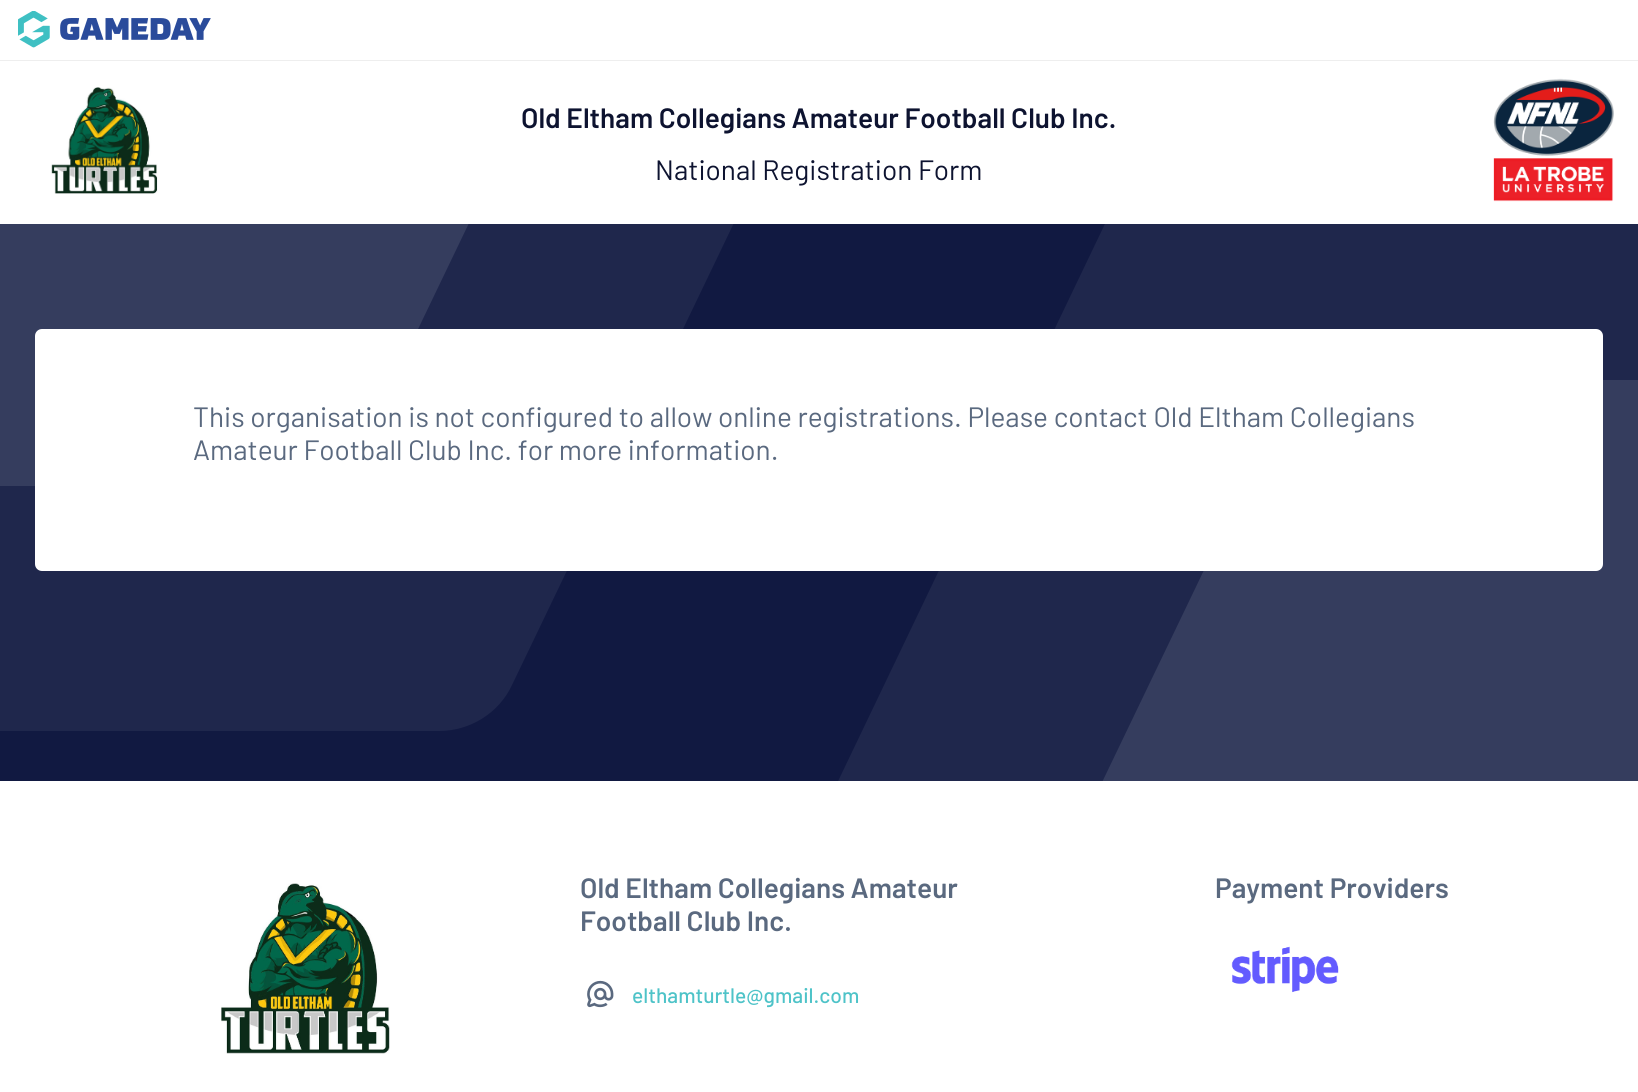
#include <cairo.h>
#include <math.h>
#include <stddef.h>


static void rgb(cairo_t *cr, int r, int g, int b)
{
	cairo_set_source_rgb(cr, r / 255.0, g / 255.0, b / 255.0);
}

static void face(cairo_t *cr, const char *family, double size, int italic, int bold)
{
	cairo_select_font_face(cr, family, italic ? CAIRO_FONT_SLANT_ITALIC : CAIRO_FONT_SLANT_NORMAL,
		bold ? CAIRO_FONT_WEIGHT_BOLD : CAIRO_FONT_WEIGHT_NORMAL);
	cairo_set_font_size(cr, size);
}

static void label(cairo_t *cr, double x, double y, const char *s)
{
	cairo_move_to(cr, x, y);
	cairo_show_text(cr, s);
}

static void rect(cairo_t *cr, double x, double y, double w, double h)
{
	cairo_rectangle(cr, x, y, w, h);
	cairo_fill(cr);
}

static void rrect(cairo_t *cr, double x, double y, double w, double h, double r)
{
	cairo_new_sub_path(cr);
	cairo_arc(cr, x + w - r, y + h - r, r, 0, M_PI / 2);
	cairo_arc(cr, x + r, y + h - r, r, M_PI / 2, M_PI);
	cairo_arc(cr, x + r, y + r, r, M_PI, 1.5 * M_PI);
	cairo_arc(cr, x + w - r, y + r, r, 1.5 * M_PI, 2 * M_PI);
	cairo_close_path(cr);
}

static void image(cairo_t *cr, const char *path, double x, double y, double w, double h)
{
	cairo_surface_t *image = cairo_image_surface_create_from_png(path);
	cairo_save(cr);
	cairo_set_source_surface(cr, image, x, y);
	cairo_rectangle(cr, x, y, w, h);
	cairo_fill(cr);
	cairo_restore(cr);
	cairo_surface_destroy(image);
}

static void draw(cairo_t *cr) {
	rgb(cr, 17, 25, 65);
	cairo_paint(cr);
	rgb(cr, 31, 39, 76);
	cairo_new_path(cr);
	cairo_move_to(cr, -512, -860);
	cairo_curve_to(cr, -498, -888, -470, -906, -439, -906);
	cairo_line_to(cr, 440, -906);
	cairo_curve_to(cr, 471, -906, 499, -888, 512, -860);
	cairo_line_to(cr, 866, -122);
	cairo_curve_to(cr, 876, -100, 876, -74, 866, -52);
	cairo_line_to(cr, 512, 685);
	cairo_curve_to(cr, 499, 713, 470, 731, 439, 731);
	cairo_line_to(cr, -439, 731);
	cairo_curve_to(cr, -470, 731, -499, 713, -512, 685);
	cairo_line_to(cr, -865, -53);
	cairo_curve_to(cr, -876, -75, -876, -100, -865, -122);
	cairo_close_path(cr);
	cairo_fill(cr);
	rgb(cr, 53, 61, 94);
	cairo_new_path(cr);
	cairo_move_to(cr, -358, -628);
	cairo_curve_to(cr, -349, -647, -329, -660, -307, -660);
	cairo_line_to(cr, 308, -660);
	cairo_curve_to(cr, 329, -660, 349, -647, 359, -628);
	cairo_line_to(cr, 606, -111);
	cairo_curve_to(cr, 613, -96, 613, -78, 606, -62);
	cairo_line_to(cr, 358, 454);
	cairo_curve_to(cr, 349, 474, 329, 486, 307, 486);
	cairo_line_to(cr, -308, 486);
	cairo_curve_to(cr, -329, 486, -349, 473, -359, 454);
	cairo_line_to(cr, -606, -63);
	cairo_curve_to(cr, -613, -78, -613, -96, -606, -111);
	cairo_close_path(cr);
	cairo_fill(cr);
	rgb(cr, 31, 39, 76);
	cairo_new_path(cr);
	cairo_move_to(cr, 1126, 180);
	cairo_curve_to(cr, 1140, 152, 1168, 134, 1199, 134);
	cairo_line_to(cr, 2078, 134);
	cairo_curve_to(cr, 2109, 134, 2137, 152, 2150, 180);
	cairo_line_to(cr, 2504, 917);
	cairo_curve_to(cr, 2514, 939, 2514, 965, 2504, 987);
	cairo_line_to(cr, 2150, 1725);
	cairo_curve_to(cr, 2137, 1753, 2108, 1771, 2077, 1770);
	cairo_line_to(cr, 1199, 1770);
	cairo_curve_to(cr, 1168, 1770, 1139, 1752, 1126, 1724);
	cairo_line_to(cr, 773, 987);
	cairo_curve_to(cr, 762, 965, 762, 939, 773, 917);
	cairo_close_path(cr);
	cairo_fill(cr);
	rgb(cr, 53, 61, 94);
	cairo_new_path(cr);
	cairo_move_to(cr, 1280, 412);
	cairo_curve_to(cr, 1289, 392, 1309, 380, 1331, 380);
	cairo_line_to(cr, 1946, 380);
	cairo_curve_to(cr, 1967, 380, 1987, 392, 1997, 412);
	cairo_line_to(cr, 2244, 928);
	cairo_curve_to(cr, 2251, 944, 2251, 962, 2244, 977);
	cairo_line_to(cr, 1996, 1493);
	cairo_curve_to(cr, 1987, 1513, 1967, 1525, 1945, 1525);
	cairo_line_to(cr, 1330, 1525);
	cairo_curve_to(cr, 1309, 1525, 1289, 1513, 1279, 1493);
	cairo_line_to(cr, 1032, 977);
	cairo_curve_to(cr, 1025, 961, 1025, 943, 1032, 928);
	cairo_close_path(cr);
	cairo_fill(cr);
	rgb(cr, 255, 255, 255);
	rect(cr, 0, 0, 1638, 60);
	rgb(cr, 238, 238, 238);
	rect(cr, 0, 60, 1638, 1);
	image(cr, "image0.png", 18, 11, 193, 37);
	rgb(cr, 255, 255, 255);
	rect(cr, 0, 61, 1638, 163);
	image(cr, "image1.png", 51, 87, 107, 107);
	face(cr, "Barlow SemiBold", 28, 0, 0);
	rgb(cr, 13, 19, 48);
	label(cr, 521, 128, "Old Eltham Collegians Amateur Football Club Inc.");
	face(cr, "Barlow", 28, 0, 0);
	label(cr, 655, 180, "National Registration Form");
	image(cr, "image2.png", 1493, 78, 121, 124);
	rgb(cr, 255, 255, 255);
	rrect(cr, 35, 329, 1568, 242, 7);
	cairo_fill(cr);
	rgb(cr, 90, 105, 127);
	label(cr, 193, 427, "This organisation is not configured to allow online registrations. Please contact Old Eltham Collegians");
	label(cr, 193, 460, "Amateur Football Club Inc. for more information.");
	rgb(cr, 255, 255, 255);
	rect(cr, 0, 781, 1638, 311);
	image(cr, "image3.png", 221, 883, 169, 171);
	face(cr, "Barlow SemiBold", 28, 0, 0);
	rgb(cr, 90, 105, 127);
	label(cr, 580, 898, "Old Eltham Collegians Amateur");
	label(cr, 580, 931, "Football Club Inc.");
	image(cr, "image4.png", 587, 980, 27, 28);
	face(cr, "Barlow Medium", 21, 0, 0);
	rgb(cr, 78, 195, 200);
	label(cr, 632, 1003, "elthamturtle@gmail.com");
	face(cr, "Barlow SemiBold", 28, 0, 0);
	rgb(cr, 90, 105, 127);
	label(cr, 1215, 898, "Payment Providers");
	image(cr, "image5.png", 1231, 946, 108, 47);
}

int main(void) {
	cairo_surface_t *surface = cairo_image_surface_create(CAIRO_FORMAT_RGB24, 1638, 1092);
	cairo_t *cr = cairo_create(surface);
	cairo_font_options_t *options = cairo_font_options_create();
	cairo_font_options_set_hint_metrics(options, CAIRO_HINT_METRICS_OFF);
	cairo_font_options_set_hint_style(options, CAIRO_HINT_STYLE_NONE);
	cairo_set_font_options(cr, options);
	cairo_set_miter_limit(cr, 4);
	draw(cr);
	cairo_surface_write_to_png(surface, "render.png");
	cairo_font_options_destroy(options);
	cairo_destroy(cr);
	cairo_surface_destroy(surface);
	return 0;
}
